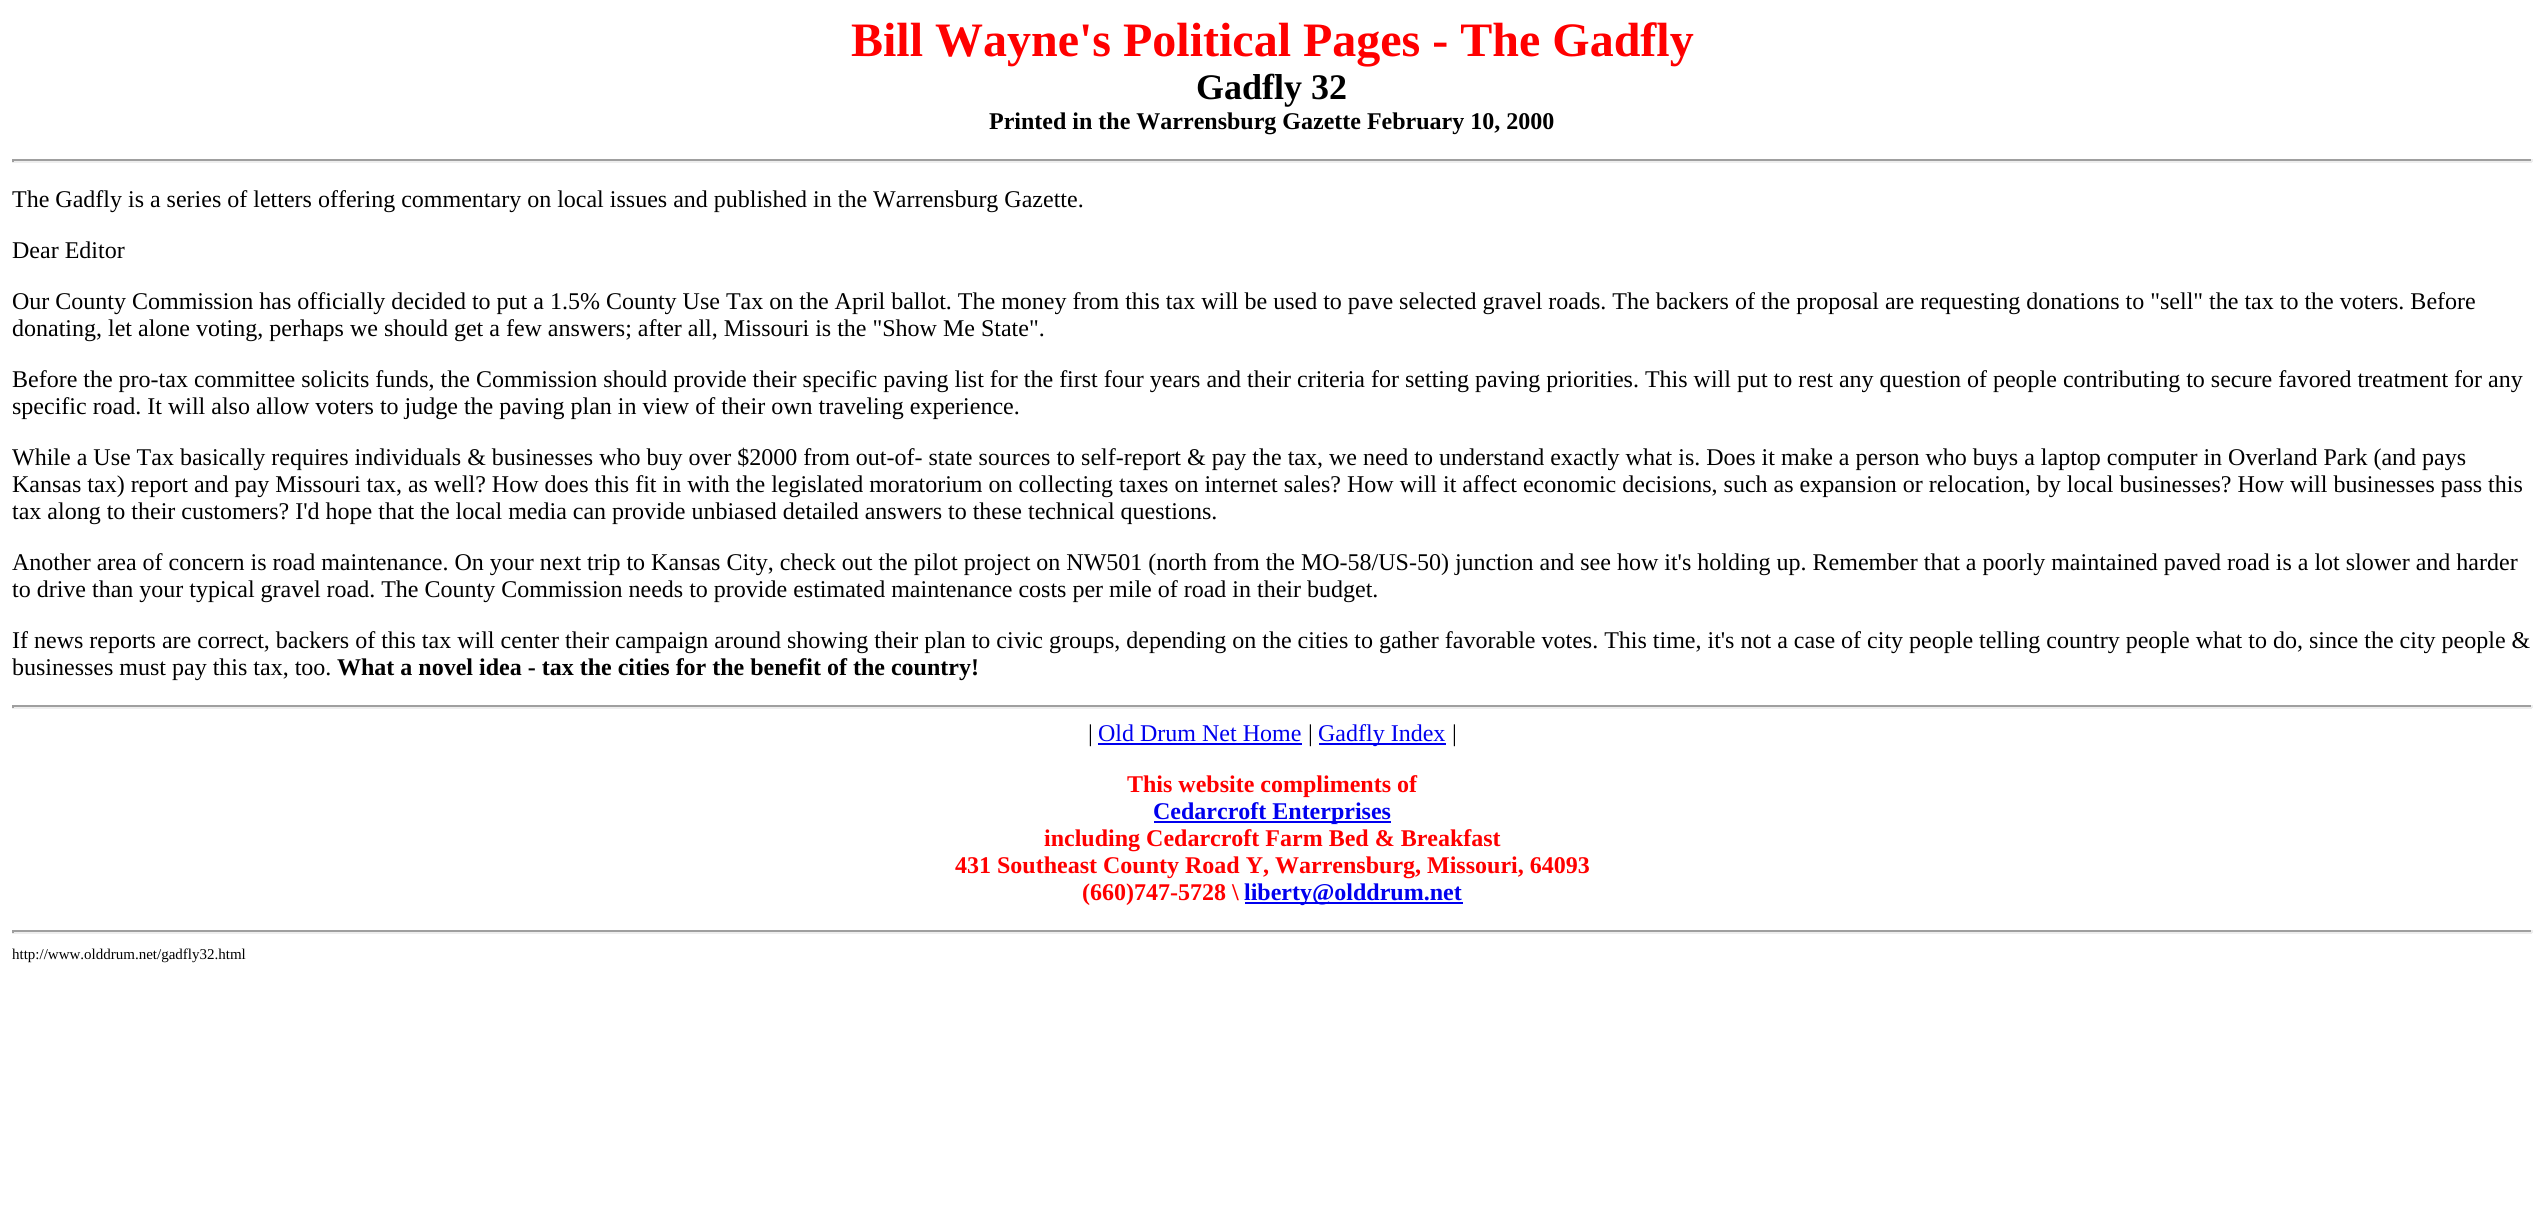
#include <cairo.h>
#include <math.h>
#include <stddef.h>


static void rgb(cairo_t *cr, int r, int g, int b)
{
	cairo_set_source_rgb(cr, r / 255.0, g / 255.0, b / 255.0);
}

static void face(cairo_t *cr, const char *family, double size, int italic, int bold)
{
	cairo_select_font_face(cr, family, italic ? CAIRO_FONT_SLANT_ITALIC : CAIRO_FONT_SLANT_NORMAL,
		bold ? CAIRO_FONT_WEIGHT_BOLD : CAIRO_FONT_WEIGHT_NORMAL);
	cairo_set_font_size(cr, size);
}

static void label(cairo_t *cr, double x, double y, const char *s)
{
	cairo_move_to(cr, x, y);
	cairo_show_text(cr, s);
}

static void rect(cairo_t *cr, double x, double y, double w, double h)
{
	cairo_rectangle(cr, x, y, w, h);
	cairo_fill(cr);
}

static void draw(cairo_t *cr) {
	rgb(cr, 255, 255, 255);
	cairo_paint(cr);
	face(cr, "Liberation Serif", 48, 0, 1);
	rgb(cr, 255, 0, 0);
	label(cr, 851, 56, "Bill Wayne's Political Pages - The Gadfly");
	face(cr, "Liberation Serif", 36, 0, 1);
	rgb(cr, 0, 0, 0);
	label(cr, 1196, 99, "Gadfly 32");
	face(cr, "Liberation Serif", 24, 0, 1);
	label(cr, 989, 129, "Printed in the Warrensburg Gazette February 10, 2000");
	rgb(cr, 159, 159, 159);
	rect(cr, 12, 159, 2520, 2);
	rgb(cr, 238, 238, 238);
	rect(cr, 2531, 159, 2, 3);
	rect(cr, 12, 161, 2520, 2);
	rgb(cr, 159, 159, 159);
	rect(cr, 12, 159, 2, 3);
	face(cr, "Liberation Serif", 24, 0, 0);
	rgb(cr, 0, 0, 0);
	label(cr, 12, 207, "The Gadfly is a series of letters offering commentary on local issues and published in the Warrensburg Gazette.");
	label(cr, 12, 258, "Dear Editor");
	label(cr, 12, 309, "Our County Commission has officially decided to put a 1.5% County Use Tax on the April ballot. The money from this tax will be used to pave selected gravel roads. The backers of the proposal are requesting donations to \"sell\" the tax to the voters. Before");
	label(cr, 12, 336, "donating, let alone voting, perhaps we should get a few answers; after all, Missouri is the \"Show Me State\".");
	label(cr, 12, 387, "Before the pro-tax committee solicits funds, the Commission should provide their specific paving list for the first four years and their criteria for setting paving priorities. This will put to rest any question of people contributing to secure favored treatment for any");
	label(cr, 12, 414, "specific road. It will also allow voters to judge the paving plan in view of their own traveling experience.");
	label(cr, 12, 465, "While a Use Tax basically requires individuals & businesses who buy over $2000 from out-of- state sources to self-report & pay the tax, we need to understand exactly what is. Does it make a person who buys a laptop computer in Overland Park (and pays");
	label(cr, 12, 492, "Kansas tax) report and pay Missouri tax, as well? How does this fit in with the legislated moratorium on collecting taxes on internet sales? How will it affect economic decisions, such as expansion or relocation, by local businesses? How will businesses pass this");
	label(cr, 12, 519, "tax along to their customers? I'd hope that the local media can provide unbiased detailed answers to these technical questions.");
	label(cr, 12, 570, "Another area of concern is road maintenance. On your next trip to Kansas City, check out the pilot project on NW501 (north from the MO-58/US-50) junction and see how it's holding up. Remember that a poorly maintained paved road is a lot slower and harder");
	label(cr, 12, 597, "to drive than your typical gravel road. The County Commission needs to provide estimated maintenance costs per mile of road in their budget.");
	label(cr, 12, 648, "If news reports are correct, backers of this tax will center their campaign around showing their plan to civic groups, depending on the cities to gather favorable votes. This time, it's not a case of city people telling country people what to do, since the city people &");
	label(cr, 12, 675, "businesses must pay this tax, too.");
	face(cr, "Liberation Serif", 24, 0, 1);
	label(cr, 337, 675, "What a novel idea - tax the cities for the benefit of the country!");
	rgb(cr, 159, 159, 159);
	rect(cr, 12, 705, 2520, 2);
	rgb(cr, 238, 238, 238);
	rect(cr, 2531, 705, 2, 3);
	rect(cr, 12, 707, 2520, 2);
	rgb(cr, 159, 159, 159);
	rect(cr, 12, 705, 2, 3);
	face(cr, "Liberation Serif", 24, 0, 0);
	rgb(cr, 0, 0, 0);
	label(cr, 1088, 741, "|");
	rgb(cr, 0, 0, 238);
	label(cr, 1098, 741, "Old Drum Net Home");
	rect(cr, 1098, 743, 204, 2);
	rgb(cr, 0, 0, 0);
	label(cr, 1308, 741, "|");
	rgb(cr, 0, 0, 238);
	rect(cr, 1319, 743, 127, 2);
	label(cr, 1318, 741, "Gadfly Index");
	rgb(cr, 0, 0, 0);
	label(cr, 1452, 741, "|");
	face(cr, "Liberation Serif", 24, 0, 1);
	rgb(cr, 255, 0, 0);
	label(cr, 1127, 792, "This website compliments of");
	rgb(cr, 0, 0, 238);
	rect(cr, 1154, 821, 237, 2);
	label(cr, 1153, 819, "Cedarcroft Enterprises");
	rgb(cr, 255, 0, 0);
	label(cr, 1044, 846, "including Cedarcroft Farm Bed & Breakfast");
	label(cr, 955, 873, "431 Southeast County Road Y, Warrensburg, Missouri, 64093");
	label(cr, 1082, 900, "(660)747-5728 \\");
	rgb(cr, 0, 0, 238);
	rect(cr, 1245, 902, 218, 2);
	label(cr, 1244, 900, "liberty@olddrum.net");
	rgb(cr, 159, 159, 159);
	rect(cr, 12, 930, 2520, 2);
	rgb(cr, 238, 238, 238);
	rect(cr, 2531, 930, 2, 3);
	rect(cr, 12, 932, 2520, 2);
	rgb(cr, 159, 159, 159);
	rect(cr, 12, 930, 2, 3);
	face(cr, "Liberation Serif", 15, 0, 0);
	rgb(cr, 0, 0, 0);
	label(cr, 12, 959, "http://www.olddrum.net/gadfly32.html");
}

int main(void) {
	cairo_surface_t *surface = cairo_image_surface_create(CAIRO_FORMAT_RGB24, 2544, 1228);
	cairo_t *cr = cairo_create(surface);
	cairo_font_options_t *options = cairo_font_options_create();
	cairo_font_options_set_hint_metrics(options, CAIRO_HINT_METRICS_OFF);
	cairo_font_options_set_hint_style(options, CAIRO_HINT_STYLE_NONE);
	cairo_set_font_options(cr, options);
	cairo_set_miter_limit(cr, 4);
	draw(cr);
	cairo_surface_write_to_png(surface, "render.png");
	cairo_font_options_destroy(options);
	cairo_destroy(cr);
	cairo_surface_destroy(surface);
	return 0;
}
